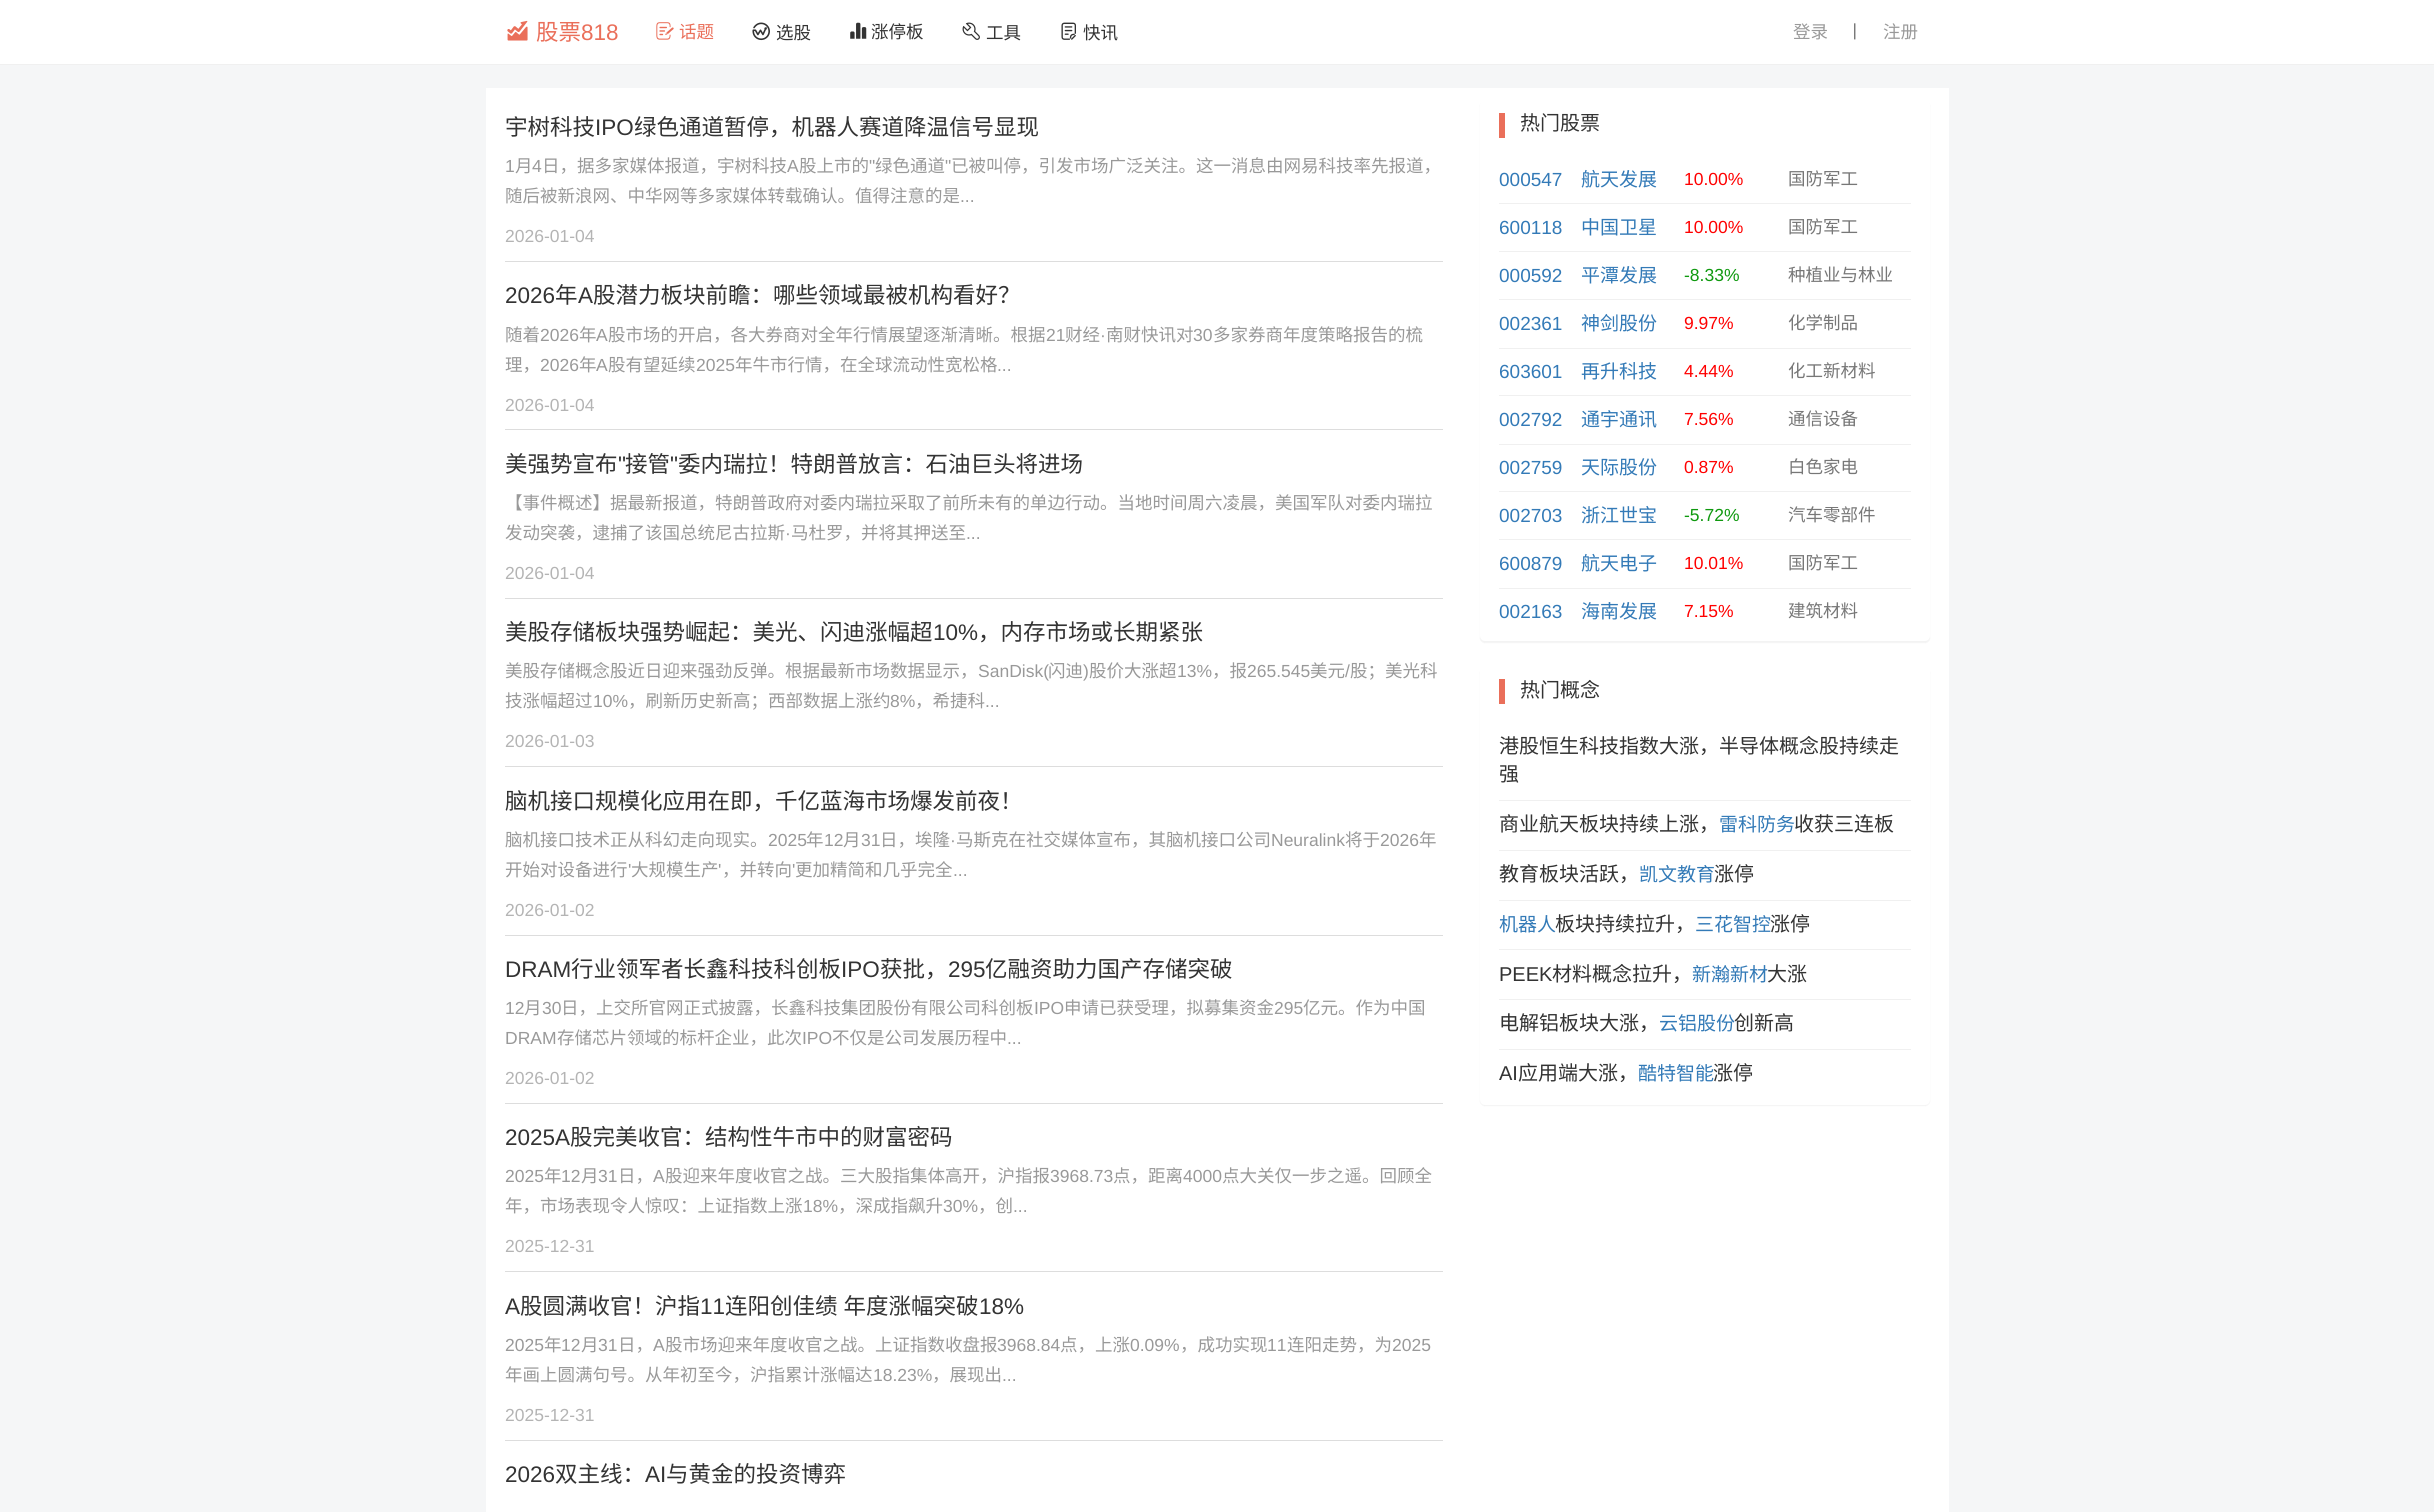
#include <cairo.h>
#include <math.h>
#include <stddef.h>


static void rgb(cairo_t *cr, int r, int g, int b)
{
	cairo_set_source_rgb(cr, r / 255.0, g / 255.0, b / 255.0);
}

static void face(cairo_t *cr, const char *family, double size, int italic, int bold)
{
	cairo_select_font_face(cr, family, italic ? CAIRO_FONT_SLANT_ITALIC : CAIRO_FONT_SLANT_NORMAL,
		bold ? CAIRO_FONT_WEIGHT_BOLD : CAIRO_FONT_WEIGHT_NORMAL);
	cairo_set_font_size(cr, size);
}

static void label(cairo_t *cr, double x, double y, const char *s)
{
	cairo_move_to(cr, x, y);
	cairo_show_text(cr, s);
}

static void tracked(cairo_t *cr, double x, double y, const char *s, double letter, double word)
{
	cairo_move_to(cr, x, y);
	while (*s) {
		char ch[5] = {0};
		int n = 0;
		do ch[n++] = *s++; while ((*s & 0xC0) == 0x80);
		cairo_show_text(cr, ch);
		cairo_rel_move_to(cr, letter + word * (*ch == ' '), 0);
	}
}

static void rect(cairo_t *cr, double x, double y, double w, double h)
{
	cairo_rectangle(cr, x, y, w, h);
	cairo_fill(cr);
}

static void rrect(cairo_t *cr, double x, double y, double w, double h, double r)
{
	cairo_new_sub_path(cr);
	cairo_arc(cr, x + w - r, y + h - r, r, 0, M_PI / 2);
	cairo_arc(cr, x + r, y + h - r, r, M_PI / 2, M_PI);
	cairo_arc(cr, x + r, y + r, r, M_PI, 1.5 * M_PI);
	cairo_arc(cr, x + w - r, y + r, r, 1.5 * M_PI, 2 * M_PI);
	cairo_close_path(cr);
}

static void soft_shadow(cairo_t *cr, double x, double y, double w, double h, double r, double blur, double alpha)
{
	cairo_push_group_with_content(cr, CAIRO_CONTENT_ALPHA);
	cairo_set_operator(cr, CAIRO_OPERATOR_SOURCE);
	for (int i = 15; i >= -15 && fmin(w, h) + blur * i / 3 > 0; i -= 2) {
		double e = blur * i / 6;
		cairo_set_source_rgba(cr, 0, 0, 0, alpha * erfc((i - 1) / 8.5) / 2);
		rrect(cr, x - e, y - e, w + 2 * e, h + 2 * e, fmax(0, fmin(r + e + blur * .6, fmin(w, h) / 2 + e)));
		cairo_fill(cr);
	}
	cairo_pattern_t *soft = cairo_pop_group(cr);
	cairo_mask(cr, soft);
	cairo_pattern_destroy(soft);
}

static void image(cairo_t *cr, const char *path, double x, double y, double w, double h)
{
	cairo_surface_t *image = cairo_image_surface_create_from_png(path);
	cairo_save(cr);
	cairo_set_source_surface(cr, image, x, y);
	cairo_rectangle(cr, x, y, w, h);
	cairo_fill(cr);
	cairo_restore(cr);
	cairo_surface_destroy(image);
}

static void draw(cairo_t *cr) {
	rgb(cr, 245, 246, 247);
	cairo_paint(cr);
	rgb(cr, 255, 255, 255);
	rect(cr, 0, 0, 2434, 64);
	rgb(cr, 240, 240, 240);
	rect(cr, 0, 64, 2434, 1);
	image(cr, "image0.png", 507, 20, 21, 21);
	face(cr, "Noto Sans CJK SC", 22.5, 0, 0);
	rgb(cr, 234, 111, 90);
	label(cr, 536, 40, "股票");
	face(cr, "Liberation Sans", 22.5, 0, 0);
	label(cr, 581, 40, "818");
	image(cr, "image1.png", 656, 22, 18, 18);
	face(cr, "Noto Sans CJK SC", 17.5, 0, 0);
	label(cr, 679, 38, "话题");
	image(cr, "image2.png", 752, 22, 18, 19);
	rgb(cr, 51, 51, 51);
	label(cr, 776, 39, "选股");
	image(cr, "image3.png", 850, 22, 17, 17);
	label(cr, 871, 38, "涨停板");
	image(cr, "image4.png", 962, 22, 18, 18);
	label(cr, 986, 39, "工具");
	image(cr, "image5.png", 1061, 22, 15, 18);
	label(cr, 1083, 39, "快讯");
	rgb(cr, 153, 153, 153);
	label(cr, 1793, 38, "登录");
	rgb(cr, 119, 119, 119);
	label(cr, 1846, 38, "丨");
	rgb(cr, 153, 153, 153);
	label(cr, 1883, 38, "注册");
	rgb(cr, 255, 255, 255);
	rect(cr, 486, 88, 1463, 1424);
	rgb(cr, 221, 221, 221);
	rect(cr, 505, 261, 938, 1);
	face(cr, "Noto Sans CJK SC", 22.5, 0, 0);
	rgb(cr, 51, 51, 51);
	label(cr, 505, 135, "宇树科技");
	face(cr, "Liberation Sans", 22.5, 0, 0);
	label(cr, 595, 135, "IPO");
	face(cr, "Noto Sans CJK SC", 22.5, 0, 0);
	label(cr, 634, 135, "绿色通道暂停，机器人赛道降温信号显现");
	face(cr, "Liberation Sans", 17.5, 0, 0);
	rgb(cr, 153, 153, 153);
	label(cr, 505, 172, "1");
	face(cr, "Noto Sans CJK SC", 17.5, 0, 0);
	label(cr, 515, 172, "月");
	face(cr, "Liberation Sans", 17.5, 0, 0);
	label(cr, 532, 172, "4");
	face(cr, "Noto Sans CJK SC", 17.5, 0, 0);
	label(cr, 542, 172, "日，据多家媒体报道，宇树科技");
	face(cr, "Liberation Sans", 17.5, 0, 0);
	label(cr, 787, 172, "A");
	face(cr, "Noto Sans CJK SC", 17.5, 0, 0);
	label(cr, 799, 172, "股上市的");
	face(cr, "Liberation Sans", 17.5, 0, 0);
	label(cr, 869, 172, "\"");
	face(cr, "Noto Sans CJK SC", 17.5, 0, 0);
	label(cr, 875, 172, "绿色通道");
	face(cr, "Liberation Sans", 17.5, 0, 0);
	label(cr, 945, 172, "\"");
	face(cr, "Noto Sans CJK SC", 17.5, 0, 0);
	label(cr, 951, 172, "已被叫停，引发市场广泛关注。这一消息由网易科技率先报道，");
	label(cr, 505, 202, "随后被新浪网、中华网等多家媒体转载确认。值得注意的是");
	face(cr, "Liberation Sans", 17.5, 0, 0);
	label(cr, 960, 202, "...");
	rgb(cr, 180, 180, 180);
	label(cr, 505, 242, "2026-01-04");
	rgb(cr, 221, 221, 221);
	rect(cr, 505, 429, 938, 1);
	face(cr, "Liberation Sans", 22.5, 0, 0);
	rgb(cr, 51, 51, 51);
	label(cr, 505, 303, "2026");
	face(cr, "Noto Sans CJK SC", 22.5, 0, 0);
	label(cr, 555, 303, "年");
	face(cr, "Liberation Sans", 22.5, 0, 0);
	label(cr, 578, 303, "A");
	face(cr, "Noto Sans CJK SC", 22.5, 0, 0);
	label(cr, 593, 303, "股潜力板块前瞻：哪些领域最被机构看好？");
	face(cr, "Noto Sans CJK SC", 17.5, 0, 0);
	rgb(cr, 153, 153, 153);
	label(cr, 505, 341, "随着");
	face(cr, "Liberation Sans", 17.5, 0, 0);
	label(cr, 540, 341, "2026");
	face(cr, "Noto Sans CJK SC", 17.5, 0, 0);
	label(cr, 579, 341, "年");
	face(cr, "Liberation Sans", 17.5, 0, 0);
	label(cr, 596, 341, "A");
	face(cr, "Noto Sans CJK SC", 17.5, 0, 0);
	label(cr, 608, 341, "股市场的开启，各大券商对全年行情展望逐渐清晰。根据");
	face(cr, "Liberation Sans", 17.5, 0, 0);
	label(cr, 1046, 341, "21");
	face(cr, "Noto Sans CJK SC", 17.5, 0, 0);
	label(cr, 1065, 341, "财经");
	face(cr, "Liberation Sans", 17.5, 0, 0);
	label(cr, 1100, 341, "·");
	face(cr, "Noto Sans CJK SC", 17.5, 0, 0);
	label(cr, 1106, 341, "南财快讯对");
	face(cr, "Liberation Sans", 17.5, 0, 0);
	label(cr, 1193, 341, "30");
	face(cr, "Noto Sans CJK SC", 17.5, 0, 0);
	label(cr, 1213, 341, "多家券商年度策略报告的梳");
	label(cr, 505, 371, "理，");
	face(cr, "Liberation Sans", 17.5, 0, 0);
	label(cr, 540, 371, "2026");
	face(cr, "Noto Sans CJK SC", 17.5, 0, 0);
	label(cr, 579, 371, "年");
	face(cr, "Liberation Sans", 17.5, 0, 0);
	label(cr, 596, 371, "A");
	face(cr, "Noto Sans CJK SC", 17.5, 0, 0);
	label(cr, 608, 371, "股有望延续");
	face(cr, "Liberation Sans", 17.5, 0, 0);
	label(cr, 696, 371, "2025");
	face(cr, "Noto Sans CJK SC", 17.5, 0, 0);
	label(cr, 735, 371, "年牛市行情，在全球流动性宽松格");
	face(cr, "Liberation Sans", 17.5, 0, 0);
	label(cr, 997, 371, "...");
	rgb(cr, 180, 180, 180);
	label(cr, 505, 411, "2026-01-04");
	rgb(cr, 221, 221, 221);
	rect(cr, 505, 598, 938, 1);
	face(cr, "Noto Sans CJK SC", 22.5, 0, 0);
	rgb(cr, 51, 51, 51);
	label(cr, 505, 472, "美强势宣布");
	face(cr, "Liberation Sans", 22.5, 0, 0);
	label(cr, 618, 472, "\"");
	face(cr, "Noto Sans CJK SC", 22.5, 0, 0);
	label(cr, 625, 472, "接管");
	face(cr, "Liberation Sans", 22.5, 0, 0);
	label(cr, 670, 472, "\"");
	face(cr, "Noto Sans CJK SC", 22.5, 0, 0);
	label(cr, 678, 472, "委内瑞拉！特朗普放言：石油巨头将进场");
	face(cr, "Noto Sans CJK SC", 17.5, 0, 0);
	rgb(cr, 153, 153, 153);
	label(cr, 505, 509, "【事件概述】据最新报道，特朗普政府对委内瑞拉采取了前所未有的单边行动。当地时间周六凌晨，美国军队对委内瑞拉");
	label(cr, 505, 539, "发动突袭，逮捕了该国总统尼古拉斯");
	face(cr, "Liberation Sans", 17.5, 0, 0);
	label(cr, 785, 539, "·");
	face(cr, "Noto Sans CJK SC", 17.5, 0, 0);
	label(cr, 791, 539, "马杜罗，并将其押送至");
	face(cr, "Liberation Sans", 17.5, 0, 0);
	label(cr, 966, 539, "...");
	rgb(cr, 180, 180, 180);
	label(cr, 505, 579, "2026-01-04");
	rgb(cr, 221, 221, 221);
	rect(cr, 505, 766, 938, 1);
	face(cr, "Noto Sans CJK SC", 22.5, 0, 0);
	rgb(cr, 51, 51, 51);
	label(cr, 505, 640, "美股存储板块强势崛起：美光、闪迪涨幅超");
	face(cr, "Liberation Sans", 22.5, 0, 0);
	label(cr, 933, 640, "10%");
	face(cr, "Noto Sans CJK SC", 22.5, 0, 0);
	label(cr, 978, 640, "，内存市场或长期紧张");
	face(cr, "Noto Sans CJK SC", 17.5, 0, 0);
	rgb(cr, 153, 153, 153);
	label(cr, 505, 677, "美股存储概念股近日迎来强劲反弹。根据最新市场数据显示，");
	face(cr, "Liberation Sans", 17.5, 0, 0);
	label(cr, 978, 677, "SanDisk(");
	face(cr, "Noto Sans CJK SC", 17.5, 0, 0);
	label(cr, 1048, 677, "闪迪");
	face(cr, "Liberation Sans", 17.5, 0, 0);
	label(cr, 1083, 677, ")");
	face(cr, "Noto Sans CJK SC", 17.5, 0, 0);
	label(cr, 1089, 677, "股价大涨超");
	face(cr, "Liberation Sans", 17.5, 0, 0);
	label(cr, 1177, 677, "13%");
	face(cr, "Noto Sans CJK SC", 17.5, 0, 0);
	label(cr, 1212, 677, "，报");
	face(cr, "Liberation Sans", 17.5, 0, 0);
	label(cr, 1247, 677, "265.545");
	face(cr, "Noto Sans CJK SC", 17.5, 0, 0);
	label(cr, 1310, 677, "美元");
	face(cr, "Liberation Sans", 17.5, 0, 0);
	label(cr, 1345, 677, "/");
	face(cr, "Noto Sans CJK SC", 17.5, 0, 0);
	label(cr, 1350, 677, "股；美光科");
	label(cr, 505, 707, "技涨幅超过");
	face(cr, "Liberation Sans", 17.5, 0, 0);
	label(cr, 593, 707, "10%");
	face(cr, "Noto Sans CJK SC", 17.5, 0, 0);
	label(cr, 628, 707, "，刷新历史新高；西部数据上涨约");
	face(cr, "Liberation Sans", 17.5, 0, 0);
	label(cr, 890, 707, "8%");
	face(cr, "Noto Sans CJK SC", 17.5, 0, 0);
	label(cr, 915, 707, "，希捷科");
	face(cr, "Liberation Sans", 17.5, 0, 0);
	label(cr, 985, 707, "...");
	rgb(cr, 180, 180, 180);
	label(cr, 505, 747, "2026-01-03");
	rgb(cr, 221, 221, 221);
	rect(cr, 505, 935, 938, 1);
	face(cr, "Noto Sans CJK SC", 22.5, 0, 0);
	rgb(cr, 51, 51, 51);
	label(cr, 505, 809, "脑机接口规模化应用在即，千亿蓝海市场爆发前夜！");
	face(cr, "Noto Sans CJK SC", 17.5, 0, 0);
	rgb(cr, 153, 153, 153);
	label(cr, 505, 846, "脑机接口技术正从科幻走向现实。");
	face(cr, "Liberation Sans", 17.5, 0, 0);
	label(cr, 768, 846, "2025");
	face(cr, "Noto Sans CJK SC", 17.5, 0, 0);
	label(cr, 806, 846, "年");
	face(cr, "Liberation Sans", 17.5, 0, 0);
	label(cr, 824, 846, "12");
	face(cr, "Noto Sans CJK SC", 17.5, 0, 0);
	label(cr, 843, 846, "月");
	face(cr, "Liberation Sans", 17.5, 0, 0);
	label(cr, 861, 846, "31");
	face(cr, "Noto Sans CJK SC", 17.5, 0, 0);
	label(cr, 880, 846, "日，埃隆");
	face(cr, "Liberation Sans", 17.5, 0, 0);
	label(cr, 950, 846, "·");
	face(cr, "Noto Sans CJK SC", 17.5, 0, 0);
	label(cr, 956, 846, "马斯克在社交媒体宣布，其脑机接口公司");
	face(cr, "Liberation Sans", 17.5, 0, 0);
	label(cr, 1271, 846, "Neuralink");
	face(cr, "Noto Sans CJK SC", 17.5, 0, 0);
	label(cr, 1345, 846, "将于");
	face(cr, "Liberation Sans", 17.5, 0, 0);
	label(cr, 1380, 846, "2026");
	face(cr, "Noto Sans CJK SC", 17.5, 0, 0);
	label(cr, 1419, 846, "年");
	label(cr, 505, 876, "开始对设备进行");
	face(cr, "Liberation Sans", 17.5, 0, 0);
	label(cr, 628, 876, "'");
	face(cr, "Noto Sans CJK SC", 17.5, 0, 0);
	label(cr, 631, 876, "大规模生产");
	face(cr, "Liberation Sans", 17.5, 0, 0);
	label(cr, 718, 876, "'");
	face(cr, "Noto Sans CJK SC", 17.5, 0, 0);
	label(cr, 722, 876, "，并转向");
	face(cr, "Liberation Sans", 17.5, 0, 0);
	label(cr, 792, 876, "'");
	face(cr, "Noto Sans CJK SC", 17.5, 0, 0);
	label(cr, 795, 876, "更加精简和几乎完全");
	face(cr, "Liberation Sans", 17.5, 0, 0);
	label(cr, 953, 876, "...");
	rgb(cr, 180, 180, 180);
	label(cr, 505, 916, "2026-01-02");
	rgb(cr, 221, 221, 221);
	rect(cr, 505, 1103, 938, 1);
	face(cr, "Liberation Sans", 22.5, 0, 0);
	rgb(cr, 51, 51, 51);
	label(cr, 505, 977, "DRAM");
	face(cr, "Noto Sans CJK SC", 22.5, 0, 0);
	label(cr, 571, 977, "行业领军者长鑫科技科创板");
	face(cr, "Liberation Sans", 22.5, 0, 0);
	label(cr, 841, 977, "IPO");
	face(cr, "Noto Sans CJK SC", 22.5, 0, 0);
	label(cr, 880, 977, "获批，");
	face(cr, "Liberation Sans", 22.5, 0, 0);
	label(cr, 948, 977, "295");
	face(cr, "Noto Sans CJK SC", 22.5, 0, 0);
	label(cr, 985, 977, "亿融资助力国产存储突破");
	face(cr, "Liberation Sans", 17.5, 0, 0);
	rgb(cr, 153, 153, 153);
	label(cr, 505, 1014, "12");
	face(cr, "Noto Sans CJK SC", 17.5, 0, 0);
	label(cr, 524, 1014, "月");
	face(cr, "Liberation Sans", 17.5, 0, 0);
	label(cr, 542, 1014, "30");
	face(cr, "Noto Sans CJK SC", 17.5, 0, 0);
	label(cr, 561, 1014, "日，上交所官网正式披露，长鑫科技集团股份有限公司科创板");
	face(cr, "Liberation Sans", 17.5, 0, 0);
	label(cr, 1034, 1014, "IPO");
	face(cr, "Noto Sans CJK SC", 17.5, 0, 0);
	label(cr, 1064, 1014, "申请已获受理，拟募集资金");
	face(cr, "Liberation Sans", 17.5, 0, 0);
	label(cr, 1274, 1014, "295");
	face(cr, "Noto Sans CJK SC", 17.5, 0, 0);
	label(cr, 1303, 1014, "亿元。作为中国");
	face(cr, "Liberation Sans", 17.5, 0, 0);
	label(cr, 505, 1044, "DRAM");
	face(cr, "Noto Sans CJK SC", 17.5, 0, 0);
	label(cr, 557, 1044, "存储芯片领域的标杆企业，此次");
	face(cr, "Liberation Sans", 17.5, 0, 0);
	label(cr, 802, 1044, "IPO");
	face(cr, "Noto Sans CJK SC", 17.5, 0, 0);
	label(cr, 832, 1044, "不仅是公司发展历程中");
	face(cr, "Liberation Sans", 17.5, 0, 0);
	label(cr, 1007, 1044, "...");
	rgb(cr, 180, 180, 180);
	label(cr, 505, 1084, "2026-01-02");
	rgb(cr, 221, 221, 221);
	rect(cr, 505, 1271, 938, 1);
	face(cr, "Liberation Sans", 22.5, 0, 0);
	rgb(cr, 51, 51, 51);
	label(cr, 505, 1145, "2025A");
	face(cr, "Noto Sans CJK SC", 22.5, 0, 0);
	label(cr, 570, 1145, "股完美收官：结构性牛市中的财富密码");
	face(cr, "Liberation Sans", 17.5, 0, 0);
	rgb(cr, 153, 153, 153);
	label(cr, 505, 1182, "2025");
	face(cr, "Noto Sans CJK SC", 17.5, 0, 0);
	label(cr, 544, 1182, "年");
	face(cr, "Liberation Sans", 17.5, 0, 0);
	label(cr, 561, 1182, "12");
	face(cr, "Noto Sans CJK SC", 17.5, 0, 0);
	label(cr, 581, 1182, "月");
	face(cr, "Liberation Sans", 17.5, 0, 0);
	label(cr, 598, 1182, "31");
	face(cr, "Noto Sans CJK SC", 17.5, 0, 0);
	label(cr, 618, 1182, "日，");
	face(cr, "Liberation Sans", 17.5, 0, 0);
	label(cr, 653, 1182, "A");
	face(cr, "Noto Sans CJK SC", 17.5, 0, 0);
	label(cr, 665, 1182, "股迎来年度收官之战。三大股指集体高开，沪指报");
	face(cr, "Liberation Sans", 17.5, 0, 0);
	label(cr, 1050, 1182, "3968.73");
	face(cr, "Noto Sans CJK SC", 17.5, 0, 0);
	label(cr, 1113, 1182, "点，距离");
	face(cr, "Liberation Sans", 17.5, 0, 0);
	label(cr, 1183, 1182, "4000");
	face(cr, "Noto Sans CJK SC", 17.5, 0, 0);
	label(cr, 1222, 1182, "点大关仅一步之遥。回顾全");
	label(cr, 505, 1212, "年，市场表现令人惊叹：上证指数上涨");
	face(cr, "Liberation Sans", 17.5, 0, 0);
	label(cr, 803, 1212, "18%");
	face(cr, "Noto Sans CJK SC", 17.5, 0, 0);
	label(cr, 838, 1212, "，深成指飙升");
	face(cr, "Liberation Sans", 17.5, 0, 0);
	label(cr, 943, 1212, "30%");
	face(cr, "Noto Sans CJK SC", 17.5, 0, 0);
	label(cr, 978, 1212, "，创");
	face(cr, "Liberation Sans", 17.5, 0, 0);
	label(cr, 1013, 1212, "...");
	rgb(cr, 180, 180, 180);
	label(cr, 505, 1252, "2025-12-31");
	rgb(cr, 221, 221, 221);
	rect(cr, 505, 1440, 938, 1);
	face(cr, "Liberation Sans", 22.5, 0, 0);
	rgb(cr, 51, 51, 51);
	label(cr, 505, 1314, "A");
	face(cr, "Noto Sans CJK SC", 22.5, 0, 0);
	label(cr, 520, 1314, "股圆满收官！沪指");
	face(cr, "Liberation Sans", 22.5, 0, 0);
	label(cr, 700, 1314, "11");
	face(cr, "Noto Sans CJK SC", 22.5, 0, 0);
	tracked(cr, 725, 1314, "连阳创佳绩 年度涨幅突破", 0, 1);
	face(cr, "Liberation Sans", 22.5, 0, 0);
	label(cr, 979, 1314, "18%");
	face(cr, "Liberation Sans", 17.5, 0, 0);
	rgb(cr, 153, 153, 153);
	label(cr, 505, 1351, "2025");
	face(cr, "Noto Sans CJK SC", 17.5, 0, 0);
	label(cr, 544, 1351, "年");
	face(cr, "Liberation Sans", 17.5, 0, 0);
	label(cr, 561, 1351, "12");
	face(cr, "Noto Sans CJK SC", 17.5, 0, 0);
	label(cr, 581, 1351, "月");
	face(cr, "Liberation Sans", 17.5, 0, 0);
	label(cr, 598, 1351, "31");
	face(cr, "Noto Sans CJK SC", 17.5, 0, 0);
	label(cr, 618, 1351, "日，");
	face(cr, "Liberation Sans", 17.5, 0, 0);
	label(cr, 653, 1351, "A");
	face(cr, "Noto Sans CJK SC", 17.5, 0, 0);
	label(cr, 665, 1351, "股市场迎来年度收官之战。上证指数收盘报");
	face(cr, "Liberation Sans", 17.5, 0, 0);
	label(cr, 997, 1351, "3968.84");
	face(cr, "Noto Sans CJK SC", 17.5, 0, 0);
	label(cr, 1060, 1351, "点，上涨");
	face(cr, "Liberation Sans", 17.5, 0, 0);
	label(cr, 1130, 1351, "0.09%");
	face(cr, "Noto Sans CJK SC", 17.5, 0, 0);
	label(cr, 1180, 1351, "，成功实现");
	face(cr, "Liberation Sans", 17.5, 0, 0);
	label(cr, 1267, 1351, "11");
	face(cr, "Noto Sans CJK SC", 17.5, 0, 0);
	label(cr, 1287, 1351, "连阳走势，为");
	face(cr, "Liberation Sans", 17.5, 0, 0);
	label(cr, 1392, 1351, "2025");
	face(cr, "Noto Sans CJK SC", 17.5, 0, 0);
	label(cr, 505, 1381, "年画上圆满句号。从年初至今，沪指累计涨幅达");
	face(cr, "Liberation Sans", 17.5, 0, 0);
	label(cr, 873, 1381, "18.23%");
	face(cr, "Noto Sans CJK SC", 17.5, 0, 0);
	label(cr, 932, 1381, "，展现出");
	face(cr, "Liberation Sans", 17.5, 0, 0);
	label(cr, 1002, 1381, "...");
	rgb(cr, 180, 180, 180);
	label(cr, 505, 1421, "2025-12-31");
	face(cr, "Liberation Sans", 22.5, 0, 0);
	rgb(cr, 51, 51, 51);
	label(cr, 505, 1482, "2026");
	face(cr, "Noto Sans CJK SC", 22.5, 0, 0);
	label(cr, 555, 1482, "双主线：");
	face(cr, "Liberation Sans", 22.5, 0, 0);
	label(cr, 645, 1482, "AI");
	face(cr, "Noto Sans CJK SC", 22.5, 0, 0);
	label(cr, 666, 1482, "与黄金的投资博弈");
	rgb(cr, 0, 0, 0);
	soft_shadow(cr, 1480, 101, 450, 542, 5, 0.5, 0.05);
	rgb(cr, 255, 255, 255);
	rrect(cr, 1480, 100, 450, 541, 5);
	cairo_fill(cr);
	rgb(cr, 234, 111, 90);
	rect(cr, 1499, 113, 6, 25);
	face(cr, "Noto Sans CJK SC", 20, 0, 0);
	rgb(cr, 51, 51, 51);
	label(cr, 1520, 130, "热门股票");
	rgb(cr, 240, 240, 240);
	rect(cr, 1499, 203, 412, 1);
	face(cr, "Liberation Sans", 19, 0, 0);
	rgb(cr, 51, 122, 183);
	label(cr, 1499, 186, "000547");
	face(cr, "Noto Sans CJK SC", 19, 0, 0);
	label(cr, 1581, 186, "航天发展");
	face(cr, "Liberation Sans", 17.5, 0, 0);
	rgb(cr, 255, 0, 0);
	label(cr, 1684, 185, "10.00%");
	face(cr, "Noto Sans CJK SC", 17.5, 0, 0);
	rgb(cr, 119, 119, 119);
	label(cr, 1788, 185, "国防军工");
	rgb(cr, 240, 240, 240);
	rect(cr, 1499, 251, 412, 1);
	face(cr, "Liberation Sans", 19, 0, 0);
	rgb(cr, 51, 122, 183);
	label(cr, 1499, 234, "600118");
	face(cr, "Noto Sans CJK SC", 19, 0, 0);
	label(cr, 1581, 234, "中国卫星");
	face(cr, "Liberation Sans", 17.5, 0, 0);
	rgb(cr, 255, 0, 0);
	label(cr, 1684, 233, "10.00%");
	face(cr, "Noto Sans CJK SC", 17.5, 0, 0);
	rgb(cr, 119, 119, 119);
	label(cr, 1788, 233, "国防军工");
	rgb(cr, 240, 240, 240);
	rect(cr, 1499, 299, 412, 1);
	face(cr, "Liberation Sans", 19, 0, 0);
	rgb(cr, 51, 122, 183);
	label(cr, 1499, 282, "000592");
	face(cr, "Noto Sans CJK SC", 19, 0, 0);
	label(cr, 1581, 282, "平潭发展");
	face(cr, "Liberation Sans", 17.5, 0, 0);
	rgb(cr, 15, 153, 15);
	label(cr, 1684, 281, "-8.33%");
	face(cr, "Noto Sans CJK SC", 17.5, 0, 0);
	rgb(cr, 119, 119, 119);
	label(cr, 1788, 281, "种植业与林业");
	rgb(cr, 240, 240, 240);
	rect(cr, 1499, 348, 412, 1);
	face(cr, "Liberation Sans", 19, 0, 0);
	rgb(cr, 51, 122, 183);
	label(cr, 1499, 330, "002361");
	face(cr, "Noto Sans CJK SC", 19, 0, 0);
	label(cr, 1581, 330, "神剑股份");
	face(cr, "Liberation Sans", 17.5, 0, 0);
	rgb(cr, 255, 0, 0);
	label(cr, 1684, 329, "9.97%");
	face(cr, "Noto Sans CJK SC", 17.5, 0, 0);
	rgb(cr, 119, 119, 119);
	label(cr, 1788, 329, "化学制品");
	rgb(cr, 240, 240, 240);
	rect(cr, 1499, 395, 412, 1);
	face(cr, "Liberation Sans", 19, 0, 0);
	rgb(cr, 51, 122, 183);
	label(cr, 1499, 378, "603601");
	face(cr, "Noto Sans CJK SC", 19, 0, 0);
	label(cr, 1581, 378, "再升科技");
	face(cr, "Liberation Sans", 17.5, 0, 0);
	rgb(cr, 255, 0, 0);
	label(cr, 1684, 377, "4.44%");
	face(cr, "Noto Sans CJK SC", 17.5, 0, 0);
	rgb(cr, 119, 119, 119);
	label(cr, 1788, 377, "化工新材料");
	rgb(cr, 240, 240, 240);
	rect(cr, 1499, 444, 412, 1);
	face(cr, "Liberation Sans", 19, 0, 0);
	rgb(cr, 51, 122, 183);
	label(cr, 1499, 426, "002792");
	face(cr, "Noto Sans CJK SC", 19, 0, 0);
	label(cr, 1581, 426, "通宇通讯");
	face(cr, "Liberation Sans", 17.5, 0, 0);
	rgb(cr, 255, 0, 0);
	label(cr, 1684, 425, "7.56%");
	face(cr, "Noto Sans CJK SC", 17.5, 0, 0);
	rgb(cr, 119, 119, 119);
	label(cr, 1788, 425, "通信设备");
	rgb(cr, 240, 240, 240);
	rect(cr, 1499, 491, 412, 1);
	face(cr, "Liberation Sans", 19, 0, 0);
	rgb(cr, 51, 122, 183);
	label(cr, 1499, 474, "002759");
	face(cr, "Noto Sans CJK SC", 19, 0, 0);
	label(cr, 1581, 474, "天际股份");
	face(cr, "Liberation Sans", 17.5, 0, 0);
	rgb(cr, 255, 0, 0);
	label(cr, 1684, 473, "0.87%");
	face(cr, "Noto Sans CJK SC", 17.5, 0, 0);
	rgb(cr, 119, 119, 119);
	label(cr, 1788, 473, "白色家电");
	rgb(cr, 240, 240, 240);
	rect(cr, 1499, 539, 412, 1);
	face(cr, "Liberation Sans", 19, 0, 0);
	rgb(cr, 51, 122, 183);
	label(cr, 1499, 522, "002703");
	face(cr, "Noto Sans CJK SC", 19, 0, 0);
	label(cr, 1581, 522, "浙江世宝");
	face(cr, "Liberation Sans", 17.5, 0, 0);
	rgb(cr, 15, 153, 15);
	label(cr, 1684, 521, "-5.72%");
	face(cr, "Noto Sans CJK SC", 17.5, 0, 0);
	rgb(cr, 119, 119, 119);
	label(cr, 1788, 521, "汽车零部件");
	rgb(cr, 240, 240, 240);
	rect(cr, 1499, 588, 412, 1);
	face(cr, "Liberation Sans", 19, 0, 0);
	rgb(cr, 51, 122, 183);
	label(cr, 1499, 570, "600879");
	face(cr, "Noto Sans CJK SC", 19, 0, 0);
	label(cr, 1581, 570, "航天电子");
	face(cr, "Liberation Sans", 17.5, 0, 0);
	rgb(cr, 255, 0, 0);
	label(cr, 1684, 569, "10.01%");
	face(cr, "Noto Sans CJK SC", 17.5, 0, 0);
	rgb(cr, 119, 119, 119);
	label(cr, 1788, 569, "国防军工");
	face(cr, "Liberation Sans", 19, 0, 0);
	rgb(cr, 51, 122, 183);
	label(cr, 1499, 618, "002163");
	face(cr, "Noto Sans CJK SC", 19, 0, 0);
	label(cr, 1581, 618, "海南发展");
	face(cr, "Liberation Sans", 17.5, 0, 0);
	rgb(cr, 255, 0, 0);
	label(cr, 1684, 617, "7.15%");
	face(cr, "Noto Sans CJK SC", 17.5, 0, 0);
	rgb(cr, 119, 119, 119);
	label(cr, 1788, 617, "建筑材料");
	rgb(cr, 0, 0, 0);
	soft_shadow(cr, 1480, 668, 450, 438, 5, 0.5, 0.05);
	rgb(cr, 255, 255, 255);
	rrect(cr, 1480, 666, 450, 439, 5);
	cairo_fill(cr);
	rgb(cr, 234, 111, 90);
	rect(cr, 1499, 679, 6, 25);
	face(cr, "Noto Sans CJK SC", 20, 0, 0);
	rgb(cr, 51, 51, 51);
	label(cr, 1520, 697, "热门概念");
	rgb(cr, 240, 240, 240);
	rect(cr, 1499, 800, 412, 1);
	rgb(cr, 51, 51, 51);
	label(cr, 1499, 753, "港股恒生科技指数大涨，半导体概念股持续走");
	label(cr, 1499, 781, "强");
	rgb(cr, 240, 240, 240);
	rect(cr, 1499, 850, 412, 1);
	rgb(cr, 51, 51, 51);
	label(cr, 1499, 831, "商业航天板块持续上涨，");
	face(cr, "Noto Sans CJK SC", 19, 0, 0);
	rgb(cr, 51, 122, 183);
	label(cr, 1719, 831, "雷科防务");
	face(cr, "Noto Sans CJK SC", 20, 0, 0);
	rgb(cr, 51, 51, 51);
	label(cr, 1794, 831, "收获三连板");
	rgb(cr, 240, 240, 240);
	rect(cr, 1499, 900, 412, 1);
	rgb(cr, 51, 51, 51);
	label(cr, 1499, 881, "教育板块活跃，");
	face(cr, "Noto Sans CJK SC", 19, 0, 0);
	rgb(cr, 51, 122, 183);
	label(cr, 1639, 881, "凯文教育");
	face(cr, "Noto Sans CJK SC", 20, 0, 0);
	rgb(cr, 51, 51, 51);
	label(cr, 1714, 881, "涨停");
	rgb(cr, 240, 240, 240);
	rect(cr, 1499, 949, 412, 1);
	face(cr, "Noto Sans CJK SC", 19, 0, 0);
	rgb(cr, 51, 122, 183);
	label(cr, 1499, 931, "机器人");
	face(cr, "Noto Sans CJK SC", 20, 0, 0);
	rgb(cr, 51, 51, 51);
	label(cr, 1555, 931, "板块持续拉升，");
	face(cr, "Noto Sans CJK SC", 19, 0, 0);
	rgb(cr, 51, 122, 183);
	label(cr, 1695, 931, "三花智控");
	face(cr, "Noto Sans CJK SC", 20, 0, 0);
	rgb(cr, 51, 51, 51);
	label(cr, 1770, 931, "涨停");
	rgb(cr, 240, 240, 240);
	rect(cr, 1499, 999, 412, 1);
	face(cr, "Liberation Sans", 20, 0, 0);
	rgb(cr, 51, 51, 51);
	label(cr, 1499, 981, "PEEK");
	face(cr, "Noto Sans CJK SC", 20, 0, 0);
	label(cr, 1552, 981, "材料概念拉升，");
	face(cr, "Noto Sans CJK SC", 19, 0, 0);
	rgb(cr, 51, 122, 183);
	label(cr, 1692, 981, "新瀚新材");
	face(cr, "Noto Sans CJK SC", 20, 0, 0);
	rgb(cr, 51, 51, 51);
	label(cr, 1767, 981, "大涨");
	rgb(cr, 240, 240, 240);
	rect(cr, 1499, 1049, 412, 1);
	rgb(cr, 51, 51, 51);
	label(cr, 1499, 1030, "电解铝板块大涨，");
	face(cr, "Noto Sans CJK SC", 19, 0, 0);
	rgb(cr, 51, 122, 183);
	label(cr, 1659, 1030, "云铝股份");
	face(cr, "Noto Sans CJK SC", 20, 0, 0);
	rgb(cr, 51, 51, 51);
	label(cr, 1734, 1030, "创新高");
	face(cr, "Liberation Sans", 20, 0, 0);
	label(cr, 1499, 1080, "AI");
	face(cr, "Noto Sans CJK SC", 20, 0, 0);
	label(cr, 1518, 1080, "应用端大涨，");
	face(cr, "Noto Sans CJK SC", 19, 0, 0);
	rgb(cr, 51, 122, 183);
	label(cr, 1638, 1080, "酷特智能");
	face(cr, "Noto Sans CJK SC", 20, 0, 0);
	rgb(cr, 51, 51, 51);
	label(cr, 1713, 1080, "涨停");
}

int main(void) {
	cairo_surface_t *surface = cairo_image_surface_create(CAIRO_FORMAT_RGB24, 2434, 1512);
	cairo_t *cr = cairo_create(surface);
	cairo_font_options_t *options = cairo_font_options_create();
	cairo_font_options_set_hint_metrics(options, CAIRO_HINT_METRICS_OFF);
	cairo_font_options_set_hint_style(options, CAIRO_HINT_STYLE_NONE);
	cairo_set_font_options(cr, options);
	cairo_set_miter_limit(cr, 4);
	draw(cr);
	cairo_surface_write_to_png(surface, "render.png");
	cairo_font_options_destroy(options);
	cairo_destroy(cr);
	cairo_surface_destroy(surface);
	return 0;
}
